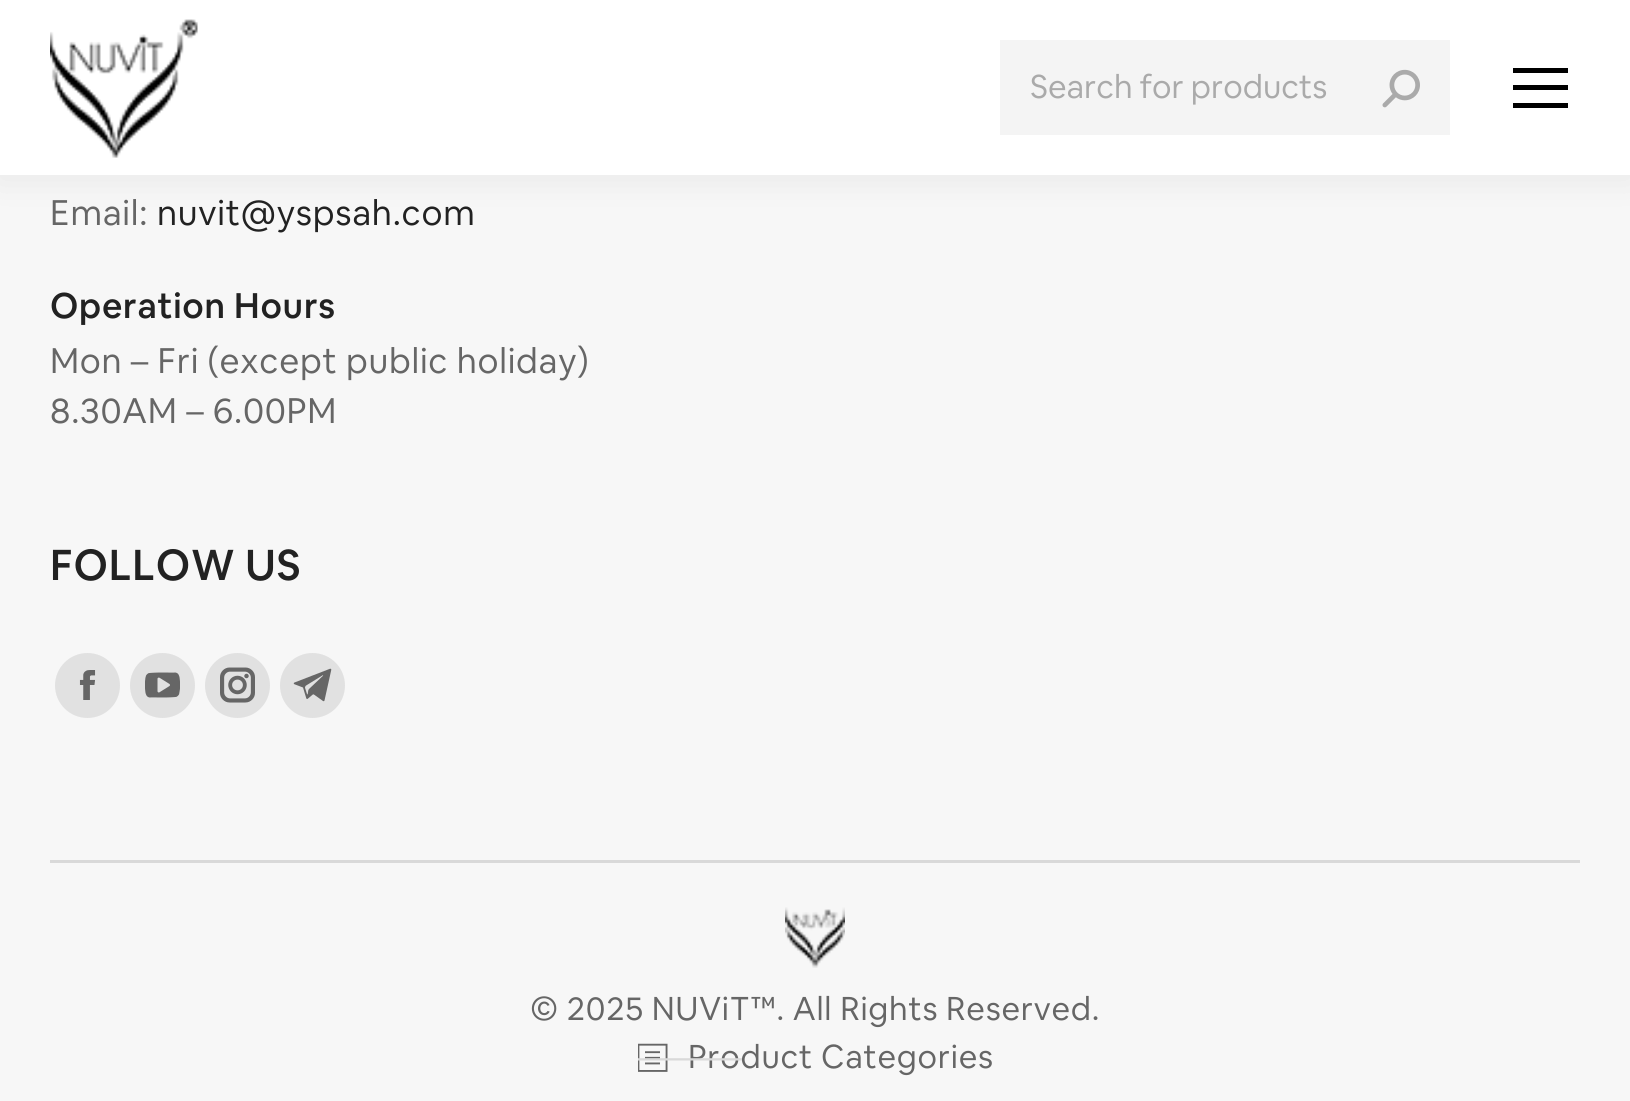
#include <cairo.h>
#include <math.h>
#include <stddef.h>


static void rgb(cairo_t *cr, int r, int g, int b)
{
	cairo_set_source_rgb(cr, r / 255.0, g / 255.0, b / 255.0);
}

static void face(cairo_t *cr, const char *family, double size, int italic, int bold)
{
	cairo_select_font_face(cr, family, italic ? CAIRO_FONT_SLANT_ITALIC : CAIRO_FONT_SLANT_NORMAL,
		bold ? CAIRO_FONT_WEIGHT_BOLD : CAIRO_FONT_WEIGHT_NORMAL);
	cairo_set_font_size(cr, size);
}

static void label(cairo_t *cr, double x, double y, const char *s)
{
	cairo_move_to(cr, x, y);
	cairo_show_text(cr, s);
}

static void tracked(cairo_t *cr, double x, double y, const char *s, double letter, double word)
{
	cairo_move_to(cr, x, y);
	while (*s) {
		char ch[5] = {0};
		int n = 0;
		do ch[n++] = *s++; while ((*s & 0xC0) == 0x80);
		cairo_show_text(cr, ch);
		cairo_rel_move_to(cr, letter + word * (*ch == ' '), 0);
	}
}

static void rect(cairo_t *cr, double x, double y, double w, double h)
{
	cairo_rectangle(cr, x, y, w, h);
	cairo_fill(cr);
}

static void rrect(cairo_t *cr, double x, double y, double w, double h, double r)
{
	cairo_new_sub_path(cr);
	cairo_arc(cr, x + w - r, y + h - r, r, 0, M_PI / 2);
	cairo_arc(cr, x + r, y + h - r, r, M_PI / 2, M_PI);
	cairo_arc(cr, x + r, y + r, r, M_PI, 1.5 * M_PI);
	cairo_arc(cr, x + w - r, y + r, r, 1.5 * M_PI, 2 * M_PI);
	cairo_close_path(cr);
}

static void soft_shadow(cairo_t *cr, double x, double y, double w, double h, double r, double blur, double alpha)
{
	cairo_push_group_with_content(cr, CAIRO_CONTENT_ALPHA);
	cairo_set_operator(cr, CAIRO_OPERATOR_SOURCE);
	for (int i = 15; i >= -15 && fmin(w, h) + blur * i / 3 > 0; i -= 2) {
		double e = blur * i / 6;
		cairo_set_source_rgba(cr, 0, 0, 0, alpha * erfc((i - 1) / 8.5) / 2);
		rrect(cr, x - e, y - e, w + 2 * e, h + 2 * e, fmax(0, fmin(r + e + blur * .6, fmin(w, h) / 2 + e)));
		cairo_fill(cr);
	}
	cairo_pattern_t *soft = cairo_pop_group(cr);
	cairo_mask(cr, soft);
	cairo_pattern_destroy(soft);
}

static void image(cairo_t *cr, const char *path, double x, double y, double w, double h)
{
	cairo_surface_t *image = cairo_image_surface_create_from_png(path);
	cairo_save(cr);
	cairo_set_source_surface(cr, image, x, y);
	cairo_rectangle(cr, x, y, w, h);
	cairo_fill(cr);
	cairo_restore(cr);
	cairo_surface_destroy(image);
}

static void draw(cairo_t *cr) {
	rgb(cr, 247, 247, 247);
	cairo_paint(cr);
	rgb(cr, 0, 0, 0);
	soft_shadow(cr, -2, -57, 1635, 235, 0, 19, 0.07);
	rgb(cr, 255, 255, 255);
	rect(cr, 0, 0, 1630, 175);
	image(cr, "image0.png", 50, 19, 148, 139);
	rgb(cr, 244, 244, 244);
	rect(cr, 1000, 40, 450, 95);
	face(cr, "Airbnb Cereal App", 32.5, 0, 0);
	rgb(cr, 170, 170, 170);
	label(cr, 1030, 98, "Search for products");
	image(cr, "image1.png", 1382, 69, 38, 39);
	rgb(cr, 0, 0, 0);
	rect(cr, 1513, 68, 55, 5);
	rect(cr, 1513, 85, 55, 5);
	rect(cr, 1513, 103, 55, 5);
	face(cr, "Airbnb Cereal App", 35, 0, 0);
	rgb(cr, 102, 102, 102);
	tracked(cr, 50, 225, "Email:", 0.75, 0);
	rgb(cr, 34, 34, 34);
	tracked(cr, 157, 225, "nuvit@yspsah.com", 0.75, 0);
	face(cr, "Airbnb Cereal App Medium", 35, 0, 0);
	tracked(cr, 50, 318, "Operation Hours", 0.75, 0);
	face(cr, "Airbnb Cereal App", 35, 0, 0);
	rgb(cr, 102, 102, 102);
	tracked(cr, 50, 373, "Mon – Fri (except public holiday)", 0.75, 0);
	tracked(cr, 50, 423, "8.30AM – 6.00PM", 0.75, 0);
	face(cr, "Airbnb Cereal App Medium", 42.5, 0, 0);
	rgb(cr, 34, 34, 34);
	tracked(cr, 50, 580, "FOLLOW US", 0.75, 0);
	rgb(cr, 225, 225, 225);
	cairo_new_path(cr);
	cairo_arc(cr, 87.5, 685.5, 32.5, 0, 2 * M_PI);
	cairo_fill(cr);
	image(cr, "image2.png", 79, 670, 17, 30);
	cairo_arc(cr, 162.5, 685.5, 32.5, 0, 2 * M_PI);
	cairo_fill(cr);
	image(cr, "image3.png", 145, 672, 35, 26);
	cairo_arc(cr, 237.5, 685.5, 32.5, 0, 2 * M_PI);
	cairo_fill(cr);
	image(cr, "image4.png", 220, 667, 35, 36);
	cairo_arc(cr, 312.5, 685.5, 32.5, 0, 2 * M_PI);
	cairo_fill(cr);
	image(cr, "image5.png", 293, 668, 39, 34);
	rgb(cr, 217, 217, 217);
	rect(cr, 50, 860, 1530, 3);
	image(cr, "image6.png", 785, 907, 60, 61);
	face(cr, "Airbnb Cereal App", 32.5, 0, 0);
	rgb(cr, 102, 102, 102);
	tracked(cr, 530, 1020, "© 2025 NUViT™. All Rights Reserved.", 0.75, 0);
	image(cr, "image7.png", 638, 1043, 30, 29);
	tracked(cr, 688, 1068, "Product Categories", 0.75, 0);
	cairo_save(cr);
	cairo_rectangle(cr, 638, 1035, 317, 43);
	cairo_clip(cr);
	face(cr, "Airbnb Cereal App", 35, 0, 0);
	rgb(cr, 217, 217, 217);
	label(cr, 637, 1069, "———");
	cairo_restore(cr);
}

int main(void) {
	cairo_surface_t *surface = cairo_image_surface_create(CAIRO_FORMAT_RGB24, 1630, 1101);
	cairo_t *cr = cairo_create(surface);
	cairo_font_options_t *options = cairo_font_options_create();
	cairo_font_options_set_hint_metrics(options, CAIRO_HINT_METRICS_OFF);
	cairo_font_options_set_hint_style(options, CAIRO_HINT_STYLE_NONE);
	cairo_set_font_options(cr, options);
	cairo_set_miter_limit(cr, 4);
	draw(cr);
	cairo_surface_write_to_png(surface, "render.png");
	cairo_font_options_destroy(options);
	cairo_destroy(cr);
	cairo_surface_destroy(surface);
	return 0;
}
